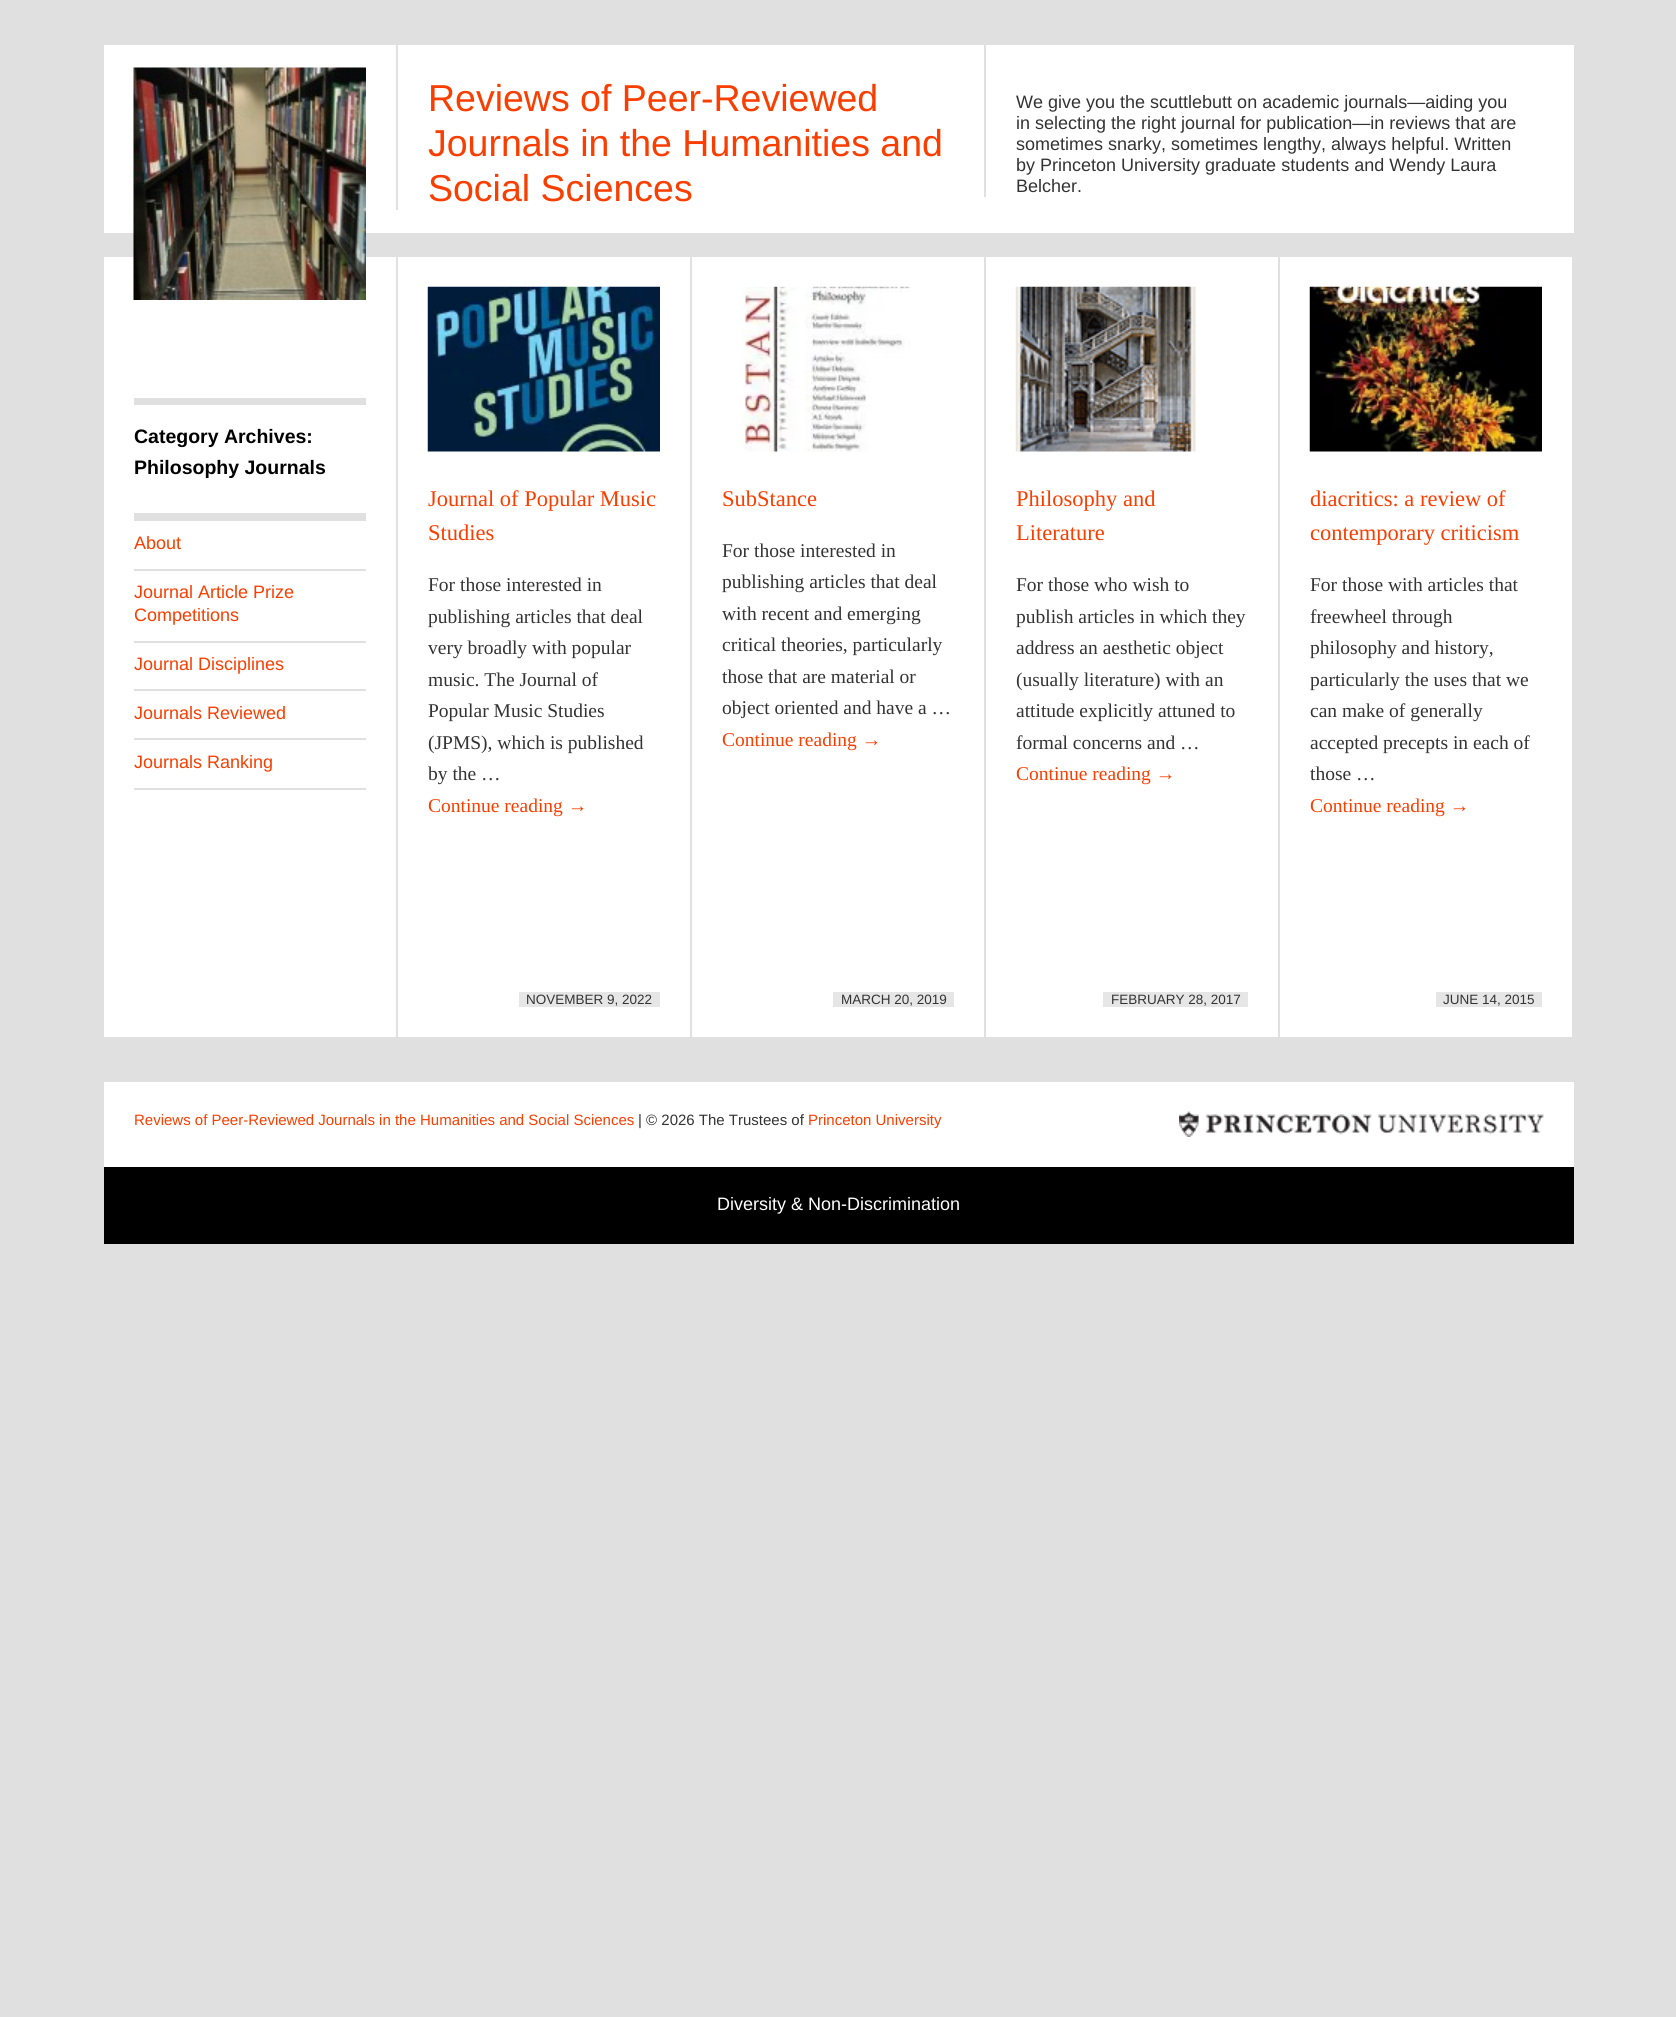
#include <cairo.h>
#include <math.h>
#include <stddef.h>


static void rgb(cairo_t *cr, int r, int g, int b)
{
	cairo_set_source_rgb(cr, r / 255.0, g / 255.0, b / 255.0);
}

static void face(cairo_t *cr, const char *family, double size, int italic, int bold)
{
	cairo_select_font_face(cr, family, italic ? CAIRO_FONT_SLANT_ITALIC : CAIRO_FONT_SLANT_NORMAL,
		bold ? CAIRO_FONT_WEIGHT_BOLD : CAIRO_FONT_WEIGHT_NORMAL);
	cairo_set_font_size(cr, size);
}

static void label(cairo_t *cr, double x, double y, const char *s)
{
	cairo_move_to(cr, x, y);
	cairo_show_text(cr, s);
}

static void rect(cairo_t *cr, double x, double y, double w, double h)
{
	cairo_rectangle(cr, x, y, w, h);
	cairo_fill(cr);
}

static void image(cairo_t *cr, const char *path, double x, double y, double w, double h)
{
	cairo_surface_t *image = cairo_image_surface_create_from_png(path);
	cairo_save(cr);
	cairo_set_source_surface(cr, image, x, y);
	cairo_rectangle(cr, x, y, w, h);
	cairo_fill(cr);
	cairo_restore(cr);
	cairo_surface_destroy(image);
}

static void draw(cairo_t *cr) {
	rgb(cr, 224, 224, 224);
	cairo_paint(cr);
	rgb(cr, 255, 255, 255);
	rect(cr, 104, 45, 1470, 188);
	rect(cr, 104, 257, 1468, 780);
	image(cr, "image0.png", 133, 67, 233, 233);
	rgb(cr, 224, 224, 224);
	rect(cr, 396, 45, 2, 165);
	face(cr, "Liberation Sans", 37.5, 0, 0);
	rgb(cr, 249, 62, 0);
	label(cr, 428, 111, "Reviews of Peer-Reviewed");
	label(cr, 428, 156, "Journals in the Humanities and");
	label(cr, 428, 201, "Social Sciences");
	rgb(cr, 224, 224, 224);
	rect(cr, 984, 45, 2, 152);
	face(cr, "Liberation Sans", 18, 0, 0);
	rgb(cr, 51, 51, 51);
	label(cr, 1016, 108, "We give you the scuttlebutt on academic journals—aiding you");
	label(cr, 1016, 129, "in selecting the right journal for publication—in reviews that are");
	label(cr, 1016, 150, "sometimes snarky, sometimes lengthy, always helpful. Written");
	label(cr, 1016, 171, "by Princeton University graduate students and Wendy Laura");
	label(cr, 1016, 192, "Belcher.");
	rgb(cr, 224, 224, 224);
	rect(cr, 396, 255, 2, 782);
	rect(cr, 134, 398, 232, 7);
	face(cr, "Liberation Sans", 19.5, 0, 1);
	rgb(cr, 0, 0, 0);
	label(cr, 134, 443, "Category Archives:");
	label(cr, 134, 474, "Philosophy Journals");
	rgb(cr, 224, 224, 224);
	rect(cr, 134, 513, 232, 8);
	rect(cr, 134, 569, 232, 2);
	face(cr, "Liberation Sans", 18, 0, 0);
	rgb(cr, 249, 62, 0);
	label(cr, 134, 549, "About");
	rgb(cr, 224, 224, 224);
	rect(cr, 134, 641, 232, 2);
	rgb(cr, 249, 62, 0);
	label(cr, 134, 598, "Journal Article Prize");
	label(cr, 134, 621, "Competitions");
	rgb(cr, 224, 224, 224);
	rect(cr, 134, 689, 232, 2);
	rgb(cr, 249, 62, 0);
	label(cr, 134, 670, "Journal Disciplines");
	rgb(cr, 224, 224, 224);
	rect(cr, 134, 738, 232, 2);
	rgb(cr, 249, 62, 0);
	label(cr, 134, 719, "Journals Reviewed");
	rgb(cr, 224, 224, 224);
	rect(cr, 134, 788, 232, 2);
	rgb(cr, 249, 62, 0);
	label(cr, 134, 768, "Journals Ranking");
	rgb(cr, 224, 224, 224);
	rect(cr, 690, 255, 2, 782);
	image(cr, "image1.png", 427, 286, 233, 166);
	face(cr, "Liberation Serif", 22.5, 0, 0);
	rgb(cr, 249, 62, 0);
	label(cr, 428, 506, "Journal of Popular Music");
	label(cr, 428, 540, "Studies");
	face(cr, "Liberation Serif", 19.5, 0, 0);
	rgb(cr, 51, 51, 51);
	label(cr, 428, 591, "For those interested in");
	label(cr, 428, 623, "publishing articles that deal");
	label(cr, 428, 654, "very broadly with popular");
	label(cr, 428, 686, "music. The Journal of");
	label(cr, 428, 717, "Popular Music Studies");
	label(cr, 428, 749, "(JPMS), which is published");
	label(cr, 428, 780, "by the …");
	rgb(cr, 249, 62, 0);
	label(cr, 428, 812, "Continue reading →");
	rgb(cr, 230, 230, 230);
	rect(cr, 519, 992, 141, 15);
	face(cr, "Liberation Sans", 13.5, 0, 0);
	rgb(cr, 51, 51, 51);
	label(cr, 526, 1004, "NOVEMBER 9, 2022");
	rgb(cr, 224, 224, 224);
	rect(cr, 984, 255, 2, 782);
	image(cr, "image2.png", 740, 286, 171, 166);
	face(cr, "Liberation Serif", 22.5, 0, 0);
	rgb(cr, 249, 62, 0);
	label(cr, 722, 506, "SubStance");
	face(cr, "Liberation Serif", 19.5, 0, 0);
	rgb(cr, 51, 51, 51);
	label(cr, 722, 557, "For those interested in");
	label(cr, 722, 588, "publishing articles that deal");
	label(cr, 722, 620, "with recent and emerging");
	label(cr, 722, 651, "critical theories, particularly");
	label(cr, 722, 683, "those that are material or");
	label(cr, 722, 714, "object oriented and have a …");
	rgb(cr, 249, 62, 0);
	label(cr, 722, 746, "Continue reading →");
	rgb(cr, 230, 230, 230);
	rect(cr, 833, 992, 121, 15);
	face(cr, "Liberation Sans", 13.5, 0, 0);
	rgb(cr, 51, 51, 51);
	label(cr, 841, 1004, "MARCH 20, 2019");
	rgb(cr, 224, 224, 224);
	rect(cr, 1278, 255, 2, 782);
	image(cr, "image3.png", 1015, 286, 181, 166);
	face(cr, "Liberation Serif", 22.5, 0, 0);
	rgb(cr, 249, 62, 0);
	label(cr, 1016, 506, "Philosophy and");
	label(cr, 1016, 540, "Literature");
	face(cr, "Liberation Serif", 19.5, 0, 0);
	rgb(cr, 51, 51, 51);
	label(cr, 1016, 591, "For those who wish to");
	label(cr, 1016, 623, "publish articles in which they");
	label(cr, 1016, 654, "address an aesthetic object");
	label(cr, 1016, 686, "(usually literature) with an");
	label(cr, 1016, 717, "attitude explicitly attuned to");
	label(cr, 1016, 749, "formal concerns and …");
	rgb(cr, 249, 62, 0);
	label(cr, 1016, 780, "Continue reading →");
	rgb(cr, 230, 230, 230);
	rect(cr, 1103, 992, 145, 15);
	face(cr, "Liberation Sans", 13.5, 0, 0);
	rgb(cr, 51, 51, 51);
	label(cr, 1111, 1004, "FEBRUARY 28, 2017");
	image(cr, "image4.png", 1309, 286, 233, 166);
	face(cr, "Liberation Serif", 22.5, 0, 0);
	rgb(cr, 249, 62, 0);
	label(cr, 1310, 506, "diacritics: a review of");
	label(cr, 1310, 540, "contemporary criticism");
	face(cr, "Liberation Serif", 19.5, 0, 0);
	rgb(cr, 51, 51, 51);
	label(cr, 1310, 591, "For those with articles that");
	label(cr, 1310, 623, "freewheel through");
	label(cr, 1310, 654, "philosophy and history,");
	label(cr, 1310, 686, "particularly the uses that we");
	label(cr, 1310, 717, "can make of generally");
	label(cr, 1310, 749, "accepted precepts in each of");
	label(cr, 1310, 780, "those …");
	rgb(cr, 249, 62, 0);
	label(cr, 1310, 812, "Continue reading →");
	rgb(cr, 230, 230, 230);
	rect(cr, 1436, 992, 106, 15);
	face(cr, "Liberation Sans", 13.5, 0, 0);
	rgb(cr, 51, 51, 51);
	label(cr, 1443, 1004, "JUNE 14, 2015");
	rgb(cr, 255, 255, 255);
	rect(cr, 104, 1082, 1470, 85);
	face(cr, "Liberation Sans", 15, 0, 0);
	rgb(cr, 249, 62, 0);
	label(cr, 134, 1125, "Reviews of Peer-Reviewed Journals in the Humanities and Social Sciences");
	rgb(cr, 51, 51, 51);
	label(cr, 638, 1125, "| © 2026 The Trustees of");
	rgb(cr, 249, 62, 0);
	label(cr, 808, 1125, "Princeton University");
	image(cr, "image5.png", 1179, 1111, 365, 26);
	rgb(cr, 0, 0, 0);
	rect(cr, 104, 1167, 1470, 77);
	face(cr, "Liberation Sans", 18, 0, 0);
	rgb(cr, 255, 255, 255);
	label(cr, 717, 1210, "Diversity & Non-Discrimination");
}

int main(void) {
	cairo_surface_t *surface = cairo_image_surface_create(CAIRO_FORMAT_RGB24, 1676, 2017);
	cairo_t *cr = cairo_create(surface);
	cairo_font_options_t *options = cairo_font_options_create();
	cairo_font_options_set_hint_metrics(options, CAIRO_HINT_METRICS_OFF);
	cairo_font_options_set_hint_style(options, CAIRO_HINT_STYLE_NONE);
	cairo_set_font_options(cr, options);
	cairo_set_miter_limit(cr, 4);
	draw(cr);
	cairo_surface_write_to_png(surface, "render.png");
	cairo_font_options_destroy(options);
	cairo_destroy(cr);
	cairo_surface_destroy(surface);
	return 0;
}
